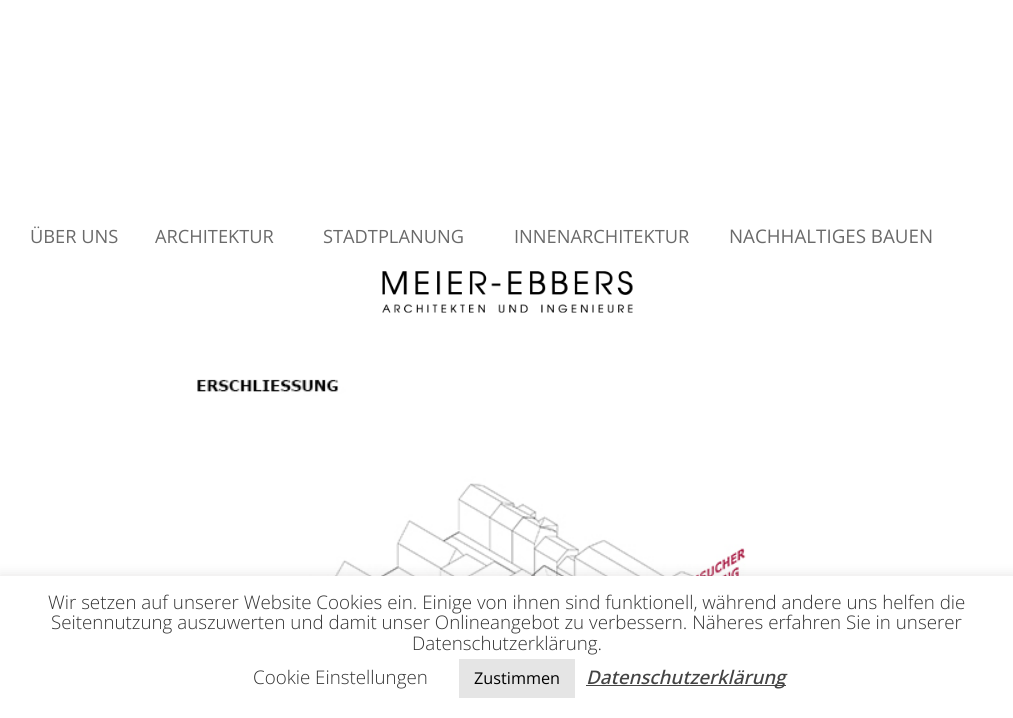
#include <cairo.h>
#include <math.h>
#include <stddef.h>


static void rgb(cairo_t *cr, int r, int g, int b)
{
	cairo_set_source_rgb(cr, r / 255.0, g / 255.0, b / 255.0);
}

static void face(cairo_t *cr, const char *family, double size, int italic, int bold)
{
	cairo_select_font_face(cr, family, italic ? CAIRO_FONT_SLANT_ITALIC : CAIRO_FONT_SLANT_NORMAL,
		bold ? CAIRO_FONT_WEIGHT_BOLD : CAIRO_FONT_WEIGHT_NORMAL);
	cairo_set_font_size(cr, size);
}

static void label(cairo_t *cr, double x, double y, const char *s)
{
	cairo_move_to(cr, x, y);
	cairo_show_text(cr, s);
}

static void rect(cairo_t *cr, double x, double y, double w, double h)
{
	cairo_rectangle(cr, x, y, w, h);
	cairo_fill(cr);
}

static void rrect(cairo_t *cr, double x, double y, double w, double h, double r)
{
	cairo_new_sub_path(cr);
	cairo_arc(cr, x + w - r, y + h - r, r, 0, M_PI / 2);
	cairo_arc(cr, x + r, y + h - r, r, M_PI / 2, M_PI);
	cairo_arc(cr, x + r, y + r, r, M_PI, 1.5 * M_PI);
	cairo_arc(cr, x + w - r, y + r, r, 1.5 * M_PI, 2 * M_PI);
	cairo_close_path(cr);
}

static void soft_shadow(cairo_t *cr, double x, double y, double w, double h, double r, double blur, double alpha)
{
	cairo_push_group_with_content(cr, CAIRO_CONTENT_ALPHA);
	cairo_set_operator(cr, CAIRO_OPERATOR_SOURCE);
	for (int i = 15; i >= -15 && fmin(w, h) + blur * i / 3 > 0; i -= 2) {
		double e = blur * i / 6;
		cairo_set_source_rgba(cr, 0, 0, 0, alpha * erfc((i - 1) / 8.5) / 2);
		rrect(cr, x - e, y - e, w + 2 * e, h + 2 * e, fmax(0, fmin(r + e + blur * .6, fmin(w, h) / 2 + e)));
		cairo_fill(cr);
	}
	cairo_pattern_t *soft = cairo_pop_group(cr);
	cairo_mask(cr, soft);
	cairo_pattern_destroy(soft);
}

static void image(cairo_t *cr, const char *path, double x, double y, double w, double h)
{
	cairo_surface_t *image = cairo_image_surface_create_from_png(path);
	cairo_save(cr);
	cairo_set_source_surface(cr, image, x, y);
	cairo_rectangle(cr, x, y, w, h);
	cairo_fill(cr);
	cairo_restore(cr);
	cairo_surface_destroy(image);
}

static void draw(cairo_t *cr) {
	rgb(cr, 255, 255, 255);
	cairo_paint(cr);
	face(cr, "Open Sans", 18.25, 0, 0);
	rgb(cr, 106, 106, 106);
	label(cr, 30, 243, "ÜBER UNS");
	label(cr, 155, 243, "ARCHITEKTUR");
	label(cr, 323, 243, "STADTPLANUNG");
	label(cr, 514, 243, "INNENARCHITEKTUR");
	face(cr, "Open Sans", 18.75, 0, 0);
	label(cr, 729, 243, "NACHHALTIGES BAUEN");
	image(cr, "image0.png", 382, 271, 251, 42);
	image(cr, "image1.png", 197, 379, 557, 197);
	rgb(cr, 172, 171, 171);
	soft_shadow(cr, 0, 575, 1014, 143, 0, 6, 0.3);
	rgb(cr, 255, 255, 255);
	rect(cr, 0, 576, 1013, 142);
	face(cr, "Open Sans Light", 18.75, 0, 0);
	rgb(cr, 51, 51, 51);
	label(cr, 48, 609, "Wir setzen auf unserer Website Cookies ein. Einige von ihnen sind funktionell, während andere uns helfen die");
	label(cr, 51, 629, "Seitennutzung auszuwerten und damit unser Onlineangebot zu verbessern. Näheres erfahren Sie in unserer");
	label(cr, 412, 650, "Datenschutzerklärung.");
	label(cr, 253, 684, "Cookie Einstellungen");
	rgb(cr, 229, 229, 229);
	rect(cr, 459, 659, 116, 39);
	face(cr, "Open Sans", 16.25, 0, 0);
	rgb(cr, 0, 0, 0);
	label(cr, 474, 684, "Zustimmen");
	rgb(cr, 68, 68, 68);
	rect(cr, 586, 685, 200, 1);
	face(cr, "Open Sans Medium", 18.75, 1, 0);
	label(cr, 586, 684, "Datenschutzerklärung");
}

int main(void) {
	cairo_surface_t *surface = cairo_image_surface_create(CAIRO_FORMAT_RGB24, 1013, 718);
	cairo_t *cr = cairo_create(surface);
	cairo_font_options_t *options = cairo_font_options_create();
	cairo_font_options_set_hint_metrics(options, CAIRO_HINT_METRICS_OFF);
	cairo_font_options_set_hint_style(options, CAIRO_HINT_STYLE_NONE);
	cairo_set_font_options(cr, options);
	cairo_set_miter_limit(cr, 4);
	draw(cr);
	cairo_surface_write_to_png(surface, "render.png");
	cairo_font_options_destroy(options);
	cairo_destroy(cr);
	cairo_surface_destroy(surface);
	return 0;
}
